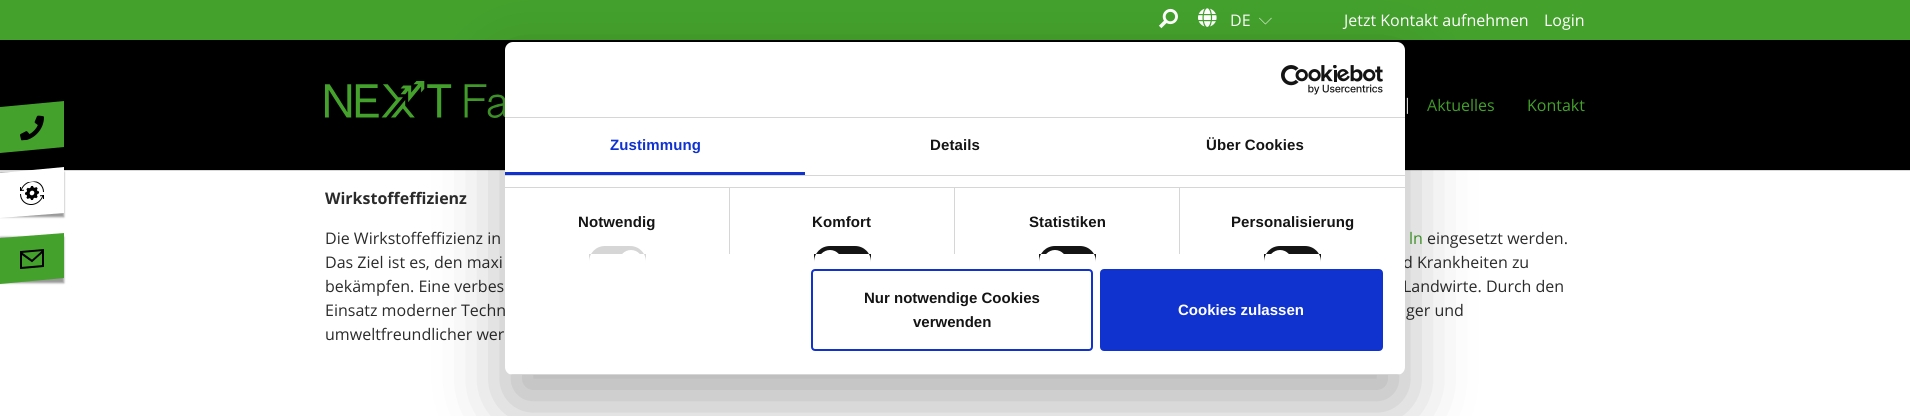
#include <cairo.h>
#include <math.h>
#include <stddef.h>


static void rgb(cairo_t *cr, int r, int g, int b)
{
	cairo_set_source_rgb(cr, r / 255.0, g / 255.0, b / 255.0);
}

static void face(cairo_t *cr, const char *family, double size, int italic, int bold)
{
	cairo_select_font_face(cr, family, italic ? CAIRO_FONT_SLANT_ITALIC : CAIRO_FONT_SLANT_NORMAL,
		bold ? CAIRO_FONT_WEIGHT_BOLD : CAIRO_FONT_WEIGHT_NORMAL);
	cairo_set_font_size(cr, size);
}

static void label(cairo_t *cr, double x, double y, const char *s)
{
	cairo_move_to(cr, x, y);
	cairo_show_text(cr, s);
}

static void tracked(cairo_t *cr, double x, double y, const char *s, double letter, double word)
{
	cairo_move_to(cr, x, y);
	while (*s) {
		char ch[5] = {0};
		int n = 0;
		do ch[n++] = *s++; while ((*s & 0xC0) == 0x80);
		cairo_show_text(cr, ch);
		cairo_rel_move_to(cr, letter + word * (*ch == ' '), 0);
	}
}

static void rect(cairo_t *cr, double x, double y, double w, double h)
{
	cairo_rectangle(cr, x, y, w, h);
	cairo_fill(cr);
}

static void rrect(cairo_t *cr, double x, double y, double w, double h, double r)
{
	cairo_new_sub_path(cr);
	cairo_arc(cr, x + w - r, y + h - r, r, 0, M_PI / 2);
	cairo_arc(cr, x + r, y + h - r, r, M_PI / 2, M_PI);
	cairo_arc(cr, x + r, y + r, r, M_PI, 1.5 * M_PI);
	cairo_arc(cr, x + w - r, y + r, r, 1.5 * M_PI, 2 * M_PI);
	cairo_close_path(cr);
}

static void soft_shadow(cairo_t *cr, double x, double y, double w, double h, double r, double blur, double alpha)
{
	cairo_push_group_with_content(cr, CAIRO_CONTENT_ALPHA);
	cairo_set_operator(cr, CAIRO_OPERATOR_SOURCE);
	for (int i = 15; i >= -15 && fmin(w, h) + blur * i / 3 > 0; i -= 2) {
		double e = blur * i / 6;
		cairo_set_source_rgba(cr, 0, 0, 0, alpha * erfc((i - 1) / 8.5) / 2);
		rrect(cr, x - e, y - e, w + 2 * e, h + 2 * e, fmax(0, fmin(r + e + blur * .6, fmin(w, h) / 2 + e)));
		cairo_fill(cr);
	}
	cairo_pattern_t *soft = cairo_pop_group(cr);
	cairo_mask(cr, soft);
	cairo_pattern_destroy(soft);
}

static void image(cairo_t *cr, const char *path, double x, double y, double w, double h)
{
	cairo_surface_t *image = cairo_image_surface_create_from_png(path);
	cairo_save(cr);
	cairo_set_source_surface(cr, image, x, y);
	cairo_rectangle(cr, x, y, w, h);
	cairo_fill(cr);
	cairo_restore(cr);
	cairo_surface_destroy(image);
}

static void draw(cairo_t *cr) {
	rgb(cr, 255, 255, 255);
	cairo_paint(cr);
	rgb(cr, 68, 161, 44);
	rect(cr, 0, 0, 1910, 40);
	image(cr, "image0.png", 1158, 8, 20, 21);
	image(cr, "image1.png", 1198, 8, 19, 19);
	face(cr, "Open Sans", 16, 0, 0);
	rgb(cr, 255, 255, 255);
	label(cr, 1230, 26, "DE");
	image(cr, "image2.png", 1259, 17, 13, 8);
	label(cr, 1344, 26, "Jetzt Kontakt aufnehmen");
	label(cr, 1544, 26, "Login");
	rgb(cr, 217, 217, 217);
	rect(cr, 0, 170, 1910, 1);
	rgb(cr, 0, 0, 0);
	rect(cr, 0, 40, 1910, 130);
	image(cr, "image3.png", 325, 81, 180, 37);
	rgb(cr, 255, 255, 255);
	label(cr, 1403, 110, "|");
	rgb(cr, 68, 161, 44);
	label(cr, 1427, 111, "Aktuelles");
	label(cr, 1527, 111, "Kontakt");
	cairo_new_path(cr);
	cairo_move_to(cr, 0, 107);
	cairo_line_to(cr, 64, 101);
	cairo_line_to(cr, 64, 147);
	cairo_line_to(cr, 0, 153);
	cairo_close_path(cr);
	cairo_fill(cr);
	image(cr, "image4.png", 20, 115, 24, 26);
	rgb(cr, 0, 0, 0);
	soft_shadow(cr, 0, 172, 64, 45, 0, 1, 0.4);
	rgb(cr, 255, 255, 255);
	cairo_new_path(cr);
	cairo_move_to(cr, 0, 173);
	cairo_line_to(cr, 64, 167);
	cairo_line_to(cr, 64, 213);
	cairo_line_to(cr, 0, 218);
	cairo_close_path(cr);
	cairo_fill(cr);
	image(cr, "image5.png", 20, 181, 24, 24);
	rgb(cr, 0, 0, 0);
	soft_shadow(cr, 0, 237, 64, 46, 0, 1, 0.4);
	rgb(cr, 68, 161, 44);
	cairo_new_path(cr);
	cairo_move_to(cr, 0, 238);
	cairo_line_to(cr, 64, 233);
	cairo_line_to(cr, 64, 278);
	cairo_line_to(cr, 0, 284);
	cairo_close_path(cr);
	cairo_fill(cr);
	image(cr, "image6.png", 20, 249, 24, 20);
	face(cr, "Open Sans", 16, 0, 1);
	rgb(cr, 43, 43, 43);
	label(cr, 325, 204, "Wirkstoffeffizienz");
	face(cr, "Open Sans", 16, 0, 0);
	label(cr, 325, 244, "Die Wirkstoffeffizienz in");
	rgb(cr, 68, 161, 44);
	label(cr, 1409, 244, "ln");
	rgb(cr, 43, 43, 43);
	label(cr, 1427, 244, "eingesetzt werden.");
	label(cr, 325, 268, "Das Ziel ist es, den maxi");
	label(cr, 1403, 268, "d Krankheiten zu");
	label(cr, 325, 292, "bekämpfen. Eine verbes");
	label(cr, 1403, 292, "Landwirte. Durch den");
	label(cr, 325, 316, "Einsatz moderner Techn");
	label(cr, 1406, 316, "ger und");
	label(cr, 325, 340, "umweltfreundlicher wer");
	rgb(cr, 0, 0, 0);
	soft_shadow(cr, 505, 74, 900, 333, 8, 34, 0.3);
	rgb(cr, 255, 255, 255);
	rrect(cr, 505, 42, 900, 333, 8);
	cairo_fill(cr);
	rgb(cr, 214, 214, 214);
	rect(cr, 505, 117, 900, 1);
	image(cr, "image7.png", 1281, 65, 102, 30);
	rect(cr, 505, 175, 900, 1);
	rgb(cr, 16, 50, 207);
	rect(cr, 505, 172, 300, 3);
	face(cr, "Liberation Sans", 15, 0, 1);
	tracked(cr, 610, 150, "Zustimmung", 0.1, 0);
	rgb(cr, 20, 20, 20);
	tracked(cr, 930, 150, "Details", 0.1, 0);
	tracked(cr, 1206, 150, "Über Cookies", 0.1, 0);
	rgb(cr, 214, 214, 214);
	rect(cr, 505, 187, 900, 1);
	rect(cr, 729, 188, 1, 66);
	rgb(cr, 20, 20, 20);
	tracked(cr, 578, 227, "Notwendig", 0.1, 0);
	rgb(cr, 214, 214, 214);
	cairo_new_path(cr);
	cairo_move_to(cr, 605, 246);
	cairo_line_to(cr, 630, 246);
	cairo_curve_to(cr, 639, 246, 646, 253, 646, 262);
	cairo_line_to(cr, 646, 254);
	cairo_line_to(cr, 589, 254);
	cairo_line_to(cr, 589, 262);
	cairo_curve_to(cr, 589, 253, 596, 246, 605, 246);
	cairo_close_path(cr);
	cairo_fill(cr);
	rgb(cr, 255, 255, 255);
	cairo_new_path(cr);
	cairo_move_to(cr, 631, 250);
	cairo_curve_to(cr, 637.5, 250, 643, 255.5, 643, 262);
	cairo_line_to(cr, 643, 254);
	cairo_line_to(cr, 619, 254);
	cairo_line_to(cr, 619, 262);
	cairo_curve_to(cr, 619, 255.5, 624.5, 250, 631, 250);
	cairo_close_path(cr);
	cairo_fill(cr);
	rgb(cr, 214, 214, 214);
	rect(cr, 954, 188, 1, 66);
	rgb(cr, 20, 20, 20);
	tracked(cr, 812, 227, "Komfort", 0.1, 0);
	cairo_new_path(cr);
	cairo_move_to(cr, 830, 246);
	cairo_line_to(cr, 855, 246);
	cairo_curve_to(cr, 864, 246, 871, 253, 871, 262);
	cairo_line_to(cr, 871, 254);
	cairo_line_to(cr, 814, 254);
	cairo_line_to(cr, 814, 262);
	cairo_curve_to(cr, 814, 253, 821, 246, 830, 246);
	cairo_close_path(cr);
	cairo_fill(cr);
	rgb(cr, 255, 255, 255);
	cairo_new_path(cr);
	cairo_move_to(cr, 830, 250);
	cairo_curve_to(cr, 836.5, 250, 842, 255.5, 842, 262);
	cairo_line_to(cr, 842, 254);
	cairo_line_to(cr, 818, 254);
	cairo_line_to(cr, 818, 262);
	cairo_curve_to(cr, 818, 255.5, 823.5, 250, 830, 250);
	cairo_close_path(cr);
	cairo_fill(cr);
	rgb(cr, 214, 214, 214);
	rect(cr, 1179, 188, 1, 66);
	rgb(cr, 20, 20, 20);
	tracked(cr, 1029, 227, "Statistiken", 0.1, 0);
	cairo_new_path(cr);
	cairo_move_to(cr, 1055, 246);
	cairo_line_to(cr, 1080, 246);
	cairo_curve_to(cr, 1089, 246, 1096, 253, 1096, 262);
	cairo_line_to(cr, 1096, 254);
	cairo_line_to(cr, 1039, 254);
	cairo_line_to(cr, 1039, 262);
	cairo_curve_to(cr, 1039, 253, 1046, 246, 1055, 246);
	cairo_close_path(cr);
	cairo_fill(cr);
	rgb(cr, 255, 255, 255);
	cairo_new_path(cr);
	cairo_move_to(cr, 1055, 250);
	cairo_curve_to(cr, 1061.5, 250, 1067, 255.5, 1067, 262);
	cairo_line_to(cr, 1067, 254);
	cairo_line_to(cr, 1043, 254);
	cairo_line_to(cr, 1043, 262);
	cairo_curve_to(cr, 1043, 255.5, 1048.5, 250, 1055, 250);
	cairo_close_path(cr);
	cairo_fill(cr);
	rgb(cr, 20, 20, 20);
	tracked(cr, 1231, 227, "Personalisierung", 0.1, 0);
	cairo_new_path(cr);
	cairo_move_to(cr, 1280, 246);
	cairo_line_to(cr, 1305, 246);
	cairo_curve_to(cr, 1314, 246, 1321, 253, 1321, 262);
	cairo_line_to(cr, 1321, 254);
	cairo_line_to(cr, 1264, 254);
	cairo_line_to(cr, 1264, 262);
	cairo_curve_to(cr, 1264, 253, 1271, 246, 1280, 246);
	cairo_close_path(cr);
	cairo_fill(cr);
	rgb(cr, 255, 255, 255);
	cairo_new_path(cr);
	cairo_move_to(cr, 1280, 250);
	cairo_curve_to(cr, 1286.5, 250, 1292, 255.5, 1292, 262);
	cairo_line_to(cr, 1292, 254);
	cairo_line_to(cr, 1268, 254);
	cairo_line_to(cr, 1268, 262);
	cairo_curve_to(cr, 1268, 255.5, 1273.5, 250, 1280, 250);
	cairo_close_path(cr);
	cairo_fill(cr);
	cairo_save(cr);
	rrect(cr, 505, 42, 900, 333, 8);
	cairo_clip(cr);
	rgb(cr, 214, 214, 214);
	rect(cr, 505, 374, 900, 1);
	cairo_restore(cr);
	rrect(cr, 812, 270, 280, 80, 3);
	rgb(cr, 16, 50, 207);
	cairo_stroke(cr);
	rgb(cr, 20, 20, 20);
	label(cr, 864, 303, "Nur notwendige Cookies");
	label(cr, 913, 327, "verwenden");
	rgb(cr, 16, 50, 207);
	rrect(cr, 1101, 270, 281, 80, 3);
	cairo_fill_preserve(cr);
	cairo_stroke(cr);
	rgb(cr, 255, 255, 255);
	label(cr, 1178, 315, "Cookies zulassen");
}

int main(void) {
	cairo_surface_t *surface = cairo_image_surface_create(CAIRO_FORMAT_RGB24, 1910, 416);
	cairo_t *cr = cairo_create(surface);
	cairo_font_options_t *options = cairo_font_options_create();
	cairo_font_options_set_hint_metrics(options, CAIRO_HINT_METRICS_OFF);
	cairo_font_options_set_hint_style(options, CAIRO_HINT_STYLE_NONE);
	cairo_set_font_options(cr, options);
	cairo_set_miter_limit(cr, 4);
	draw(cr);
	cairo_surface_write_to_png(surface, "render.png");
	cairo_font_options_destroy(options);
	cairo_destroy(cr);
	cairo_surface_destroy(surface);
	return 0;
}
